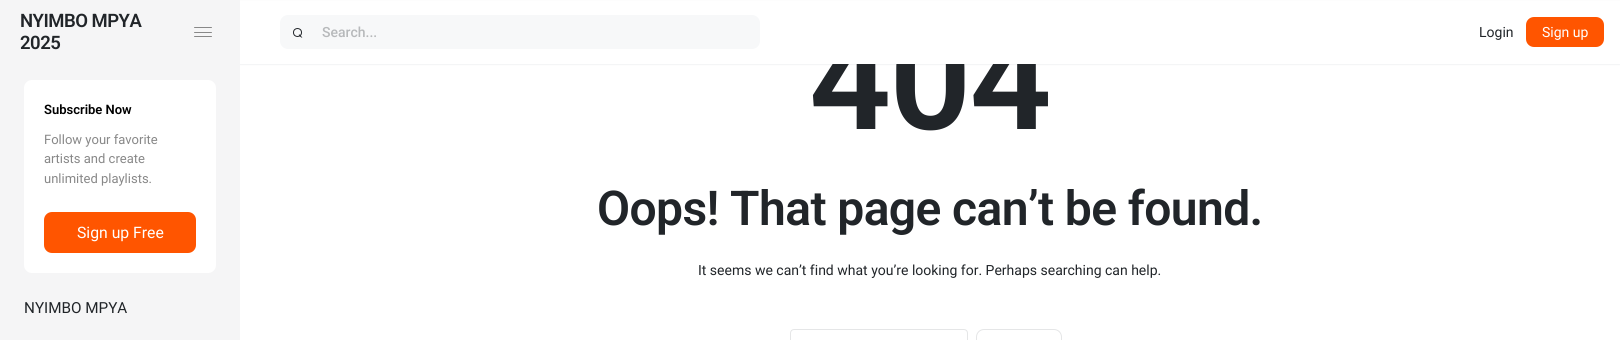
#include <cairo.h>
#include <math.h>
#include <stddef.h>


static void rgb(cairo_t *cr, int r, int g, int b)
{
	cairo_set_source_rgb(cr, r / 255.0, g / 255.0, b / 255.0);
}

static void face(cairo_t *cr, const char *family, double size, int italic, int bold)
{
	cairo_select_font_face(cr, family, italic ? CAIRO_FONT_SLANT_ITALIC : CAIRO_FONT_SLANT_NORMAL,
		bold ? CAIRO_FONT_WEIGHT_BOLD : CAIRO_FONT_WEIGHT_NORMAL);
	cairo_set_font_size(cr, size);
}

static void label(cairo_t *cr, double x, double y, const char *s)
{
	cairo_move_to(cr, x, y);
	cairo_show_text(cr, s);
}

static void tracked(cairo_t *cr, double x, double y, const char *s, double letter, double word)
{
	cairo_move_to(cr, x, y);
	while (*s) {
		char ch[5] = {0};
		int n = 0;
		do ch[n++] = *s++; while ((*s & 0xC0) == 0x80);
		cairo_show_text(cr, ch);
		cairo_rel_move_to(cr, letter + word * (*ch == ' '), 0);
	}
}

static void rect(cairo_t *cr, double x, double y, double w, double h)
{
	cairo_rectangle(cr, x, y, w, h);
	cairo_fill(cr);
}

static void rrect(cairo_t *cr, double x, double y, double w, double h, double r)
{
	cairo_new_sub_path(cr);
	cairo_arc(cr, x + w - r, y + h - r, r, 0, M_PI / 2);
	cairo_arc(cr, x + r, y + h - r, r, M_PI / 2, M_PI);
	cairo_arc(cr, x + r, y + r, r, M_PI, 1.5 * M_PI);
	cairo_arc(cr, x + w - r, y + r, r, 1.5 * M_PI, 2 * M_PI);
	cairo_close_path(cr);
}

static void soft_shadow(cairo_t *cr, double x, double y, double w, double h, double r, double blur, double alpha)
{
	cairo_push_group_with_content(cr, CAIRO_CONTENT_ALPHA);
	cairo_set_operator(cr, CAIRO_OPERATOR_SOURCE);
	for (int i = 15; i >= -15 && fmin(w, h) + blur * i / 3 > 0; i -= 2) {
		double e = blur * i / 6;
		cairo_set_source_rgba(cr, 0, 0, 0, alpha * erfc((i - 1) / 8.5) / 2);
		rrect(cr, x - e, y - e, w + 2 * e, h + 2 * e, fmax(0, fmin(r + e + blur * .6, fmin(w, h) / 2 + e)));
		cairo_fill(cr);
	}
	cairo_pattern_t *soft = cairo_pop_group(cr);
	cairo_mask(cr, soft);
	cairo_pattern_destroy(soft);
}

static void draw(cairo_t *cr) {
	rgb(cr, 255, 255, 255);
	cairo_paint(cr);
	rgb(cr, 130, 140, 150);
	soft_shadow(cr, 0, 1, 1620, 64, 0, 0.5, 0.1);
	rgb(cr, 245, 245, 246);
	rect(cr, 0, 0, 240, 340);
	face(cr, "Roboto SemiBold", 18.5, 0, 0);
	rgb(cr, 33, 37, 41);
	tracked(cr, 20, 27, "NYIMBO MPYA", -0.5, 0);
	tracked(cr, 20, 49, "2025", -0.5, 0);
	rgb(cr, 136, 136, 136);
	rrect(cr, 194, 32, 18, 1, 0.5);
	cairo_fill(cr);
	rrect(cr, 194, 27, 18, 1, 0.5);
	cairo_fill(cr);
	rrect(cr, 194, 36, 18, 1, 0.5);
	cairo_fill(cr);
	rgb(cr, 255, 255, 255);
	rrect(cr, 24, 80, 192, 193, 8);
	cairo_fill(cr);
	face(cr, "Roboto SemiBold", 13, 0, 0);
	rgb(cr, 0, 0, 0);
	label(cr, 44, 114, "Subscribe Now");
	face(cr, "Roboto", 13, 0, 0);
	rgb(cr, 136, 136, 136);
	label(cr, 44, 144, "Follow your favorite");
	label(cr, 44, 163, "artists and create");
	label(cr, 44, 183, "unlimited playlists.");
	rgb(cr, 255, 85, 0);
	rrect(cr, 44, 212, 152, 41, 8);
	cairo_fill(cr);
	face(cr, "Roboto", 15.75, 0, 0);
	rgb(cr, 255, 255, 255);
	label(cr, 77, 238, "Sign up Free");
	face(cr, "Roboto", 15.25, 0, 0);
	rgb(cr, 33, 37, 41);
	label(cr, 24, 313, "NYIMBO MPYA");
	face(cr, "Roboto SemiBold", 144, 0, 0);
	tracked(cr, 809, 129, "404", -2, 0);
	face(cr, "Roboto SemiBold", 48, 0, 0);
	tracked(cr, 597, 225, "Oops! That page can’t be found.", -0.6, 0);
	face(cr, "Roboto", 14, 0, 0);
	label(cr, 698, 275, "It seems we can’t find what you’re looking for. Perhaps searching can help.");
	rrect(cr, 790.5, 329.5, 177, 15, 3.5);
	rgb(cr, 229, 230, 231);
	cairo_set_line_width(cr, 1);
	cairo_stroke(cr);
	rrect(cr, 976.5, 329.5, 85, 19, 7.5);
	cairo_stroke(cr);
	rgb(cr, 255, 255, 255);
	rect(cr, 240, 1, 1380, 63);
	rgb(cr, 247, 248, 249);
	rrect(cr, 280, 15, 480, 34, 8);
	cairo_fill(cr);
	cairo_arc(cr, 297.5, 32.5, 4, 0, 2 * M_PI);
	rgb(cr, 33, 37, 41);
	cairo_stroke(cr);
	cairo_new_path(cr);
	cairo_move_to(cr, 299.5, 34.5);
	cairo_line_to(cr, 301, 36);
	cairo_curve_to(cr, 303, 38, 302.5, 38.5, 300, 36.5);
	cairo_line_to(cr, 299, 35.5);
	cairo_curve_to(cr, 298.5, 35, 299, 34, 299.5, 34.5);
	cairo_close_path(cr);
	cairo_fill(cr);
	face(cr, "Roboto Medium", 14, 0, 0);
	rgb(cr, 183, 185, 187);
	label(cr, 322, 37, "Search...");
	face(cr, "Roboto", 14, 0, 0);
	rgb(cr, 33, 37, 41);
	label(cr, 1479, 37, "Login");
	rgb(cr, 255, 85, 0);
	rrect(cr, 1526, 17, 78, 30, 8);
	cairo_fill(cr);
	rgb(cr, 255, 255, 255);
	label(cr, 1542, 37, "Sign up");
}

int main(void) {
	cairo_surface_t *surface = cairo_image_surface_create(CAIRO_FORMAT_RGB24, 1620, 340);
	cairo_t *cr = cairo_create(surface);
	cairo_font_options_t *options = cairo_font_options_create();
	cairo_font_options_set_hint_metrics(options, CAIRO_HINT_METRICS_OFF);
	cairo_font_options_set_hint_style(options, CAIRO_HINT_STYLE_NONE);
	cairo_set_font_options(cr, options);
	cairo_set_miter_limit(cr, 4);
	draw(cr);
	cairo_surface_write_to_png(surface, "render.png");
	cairo_font_options_destroy(options);
	cairo_destroy(cr);
	cairo_surface_destroy(surface);
	return 0;
}
